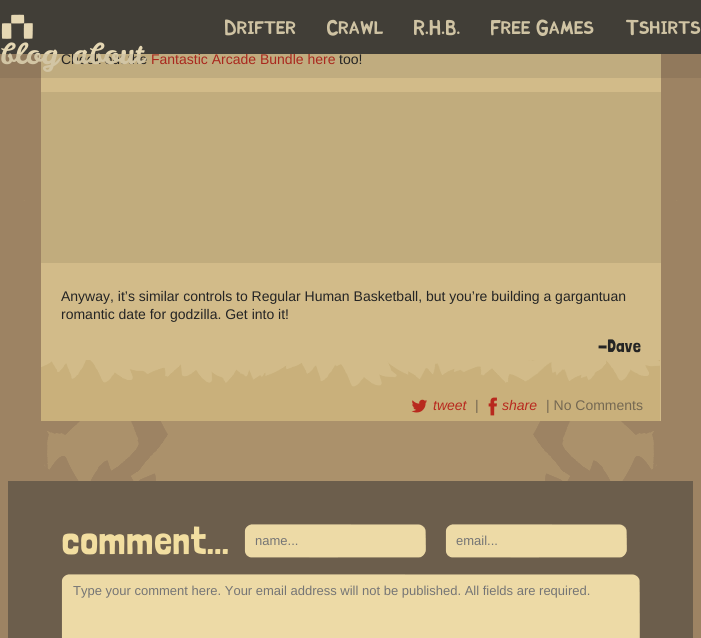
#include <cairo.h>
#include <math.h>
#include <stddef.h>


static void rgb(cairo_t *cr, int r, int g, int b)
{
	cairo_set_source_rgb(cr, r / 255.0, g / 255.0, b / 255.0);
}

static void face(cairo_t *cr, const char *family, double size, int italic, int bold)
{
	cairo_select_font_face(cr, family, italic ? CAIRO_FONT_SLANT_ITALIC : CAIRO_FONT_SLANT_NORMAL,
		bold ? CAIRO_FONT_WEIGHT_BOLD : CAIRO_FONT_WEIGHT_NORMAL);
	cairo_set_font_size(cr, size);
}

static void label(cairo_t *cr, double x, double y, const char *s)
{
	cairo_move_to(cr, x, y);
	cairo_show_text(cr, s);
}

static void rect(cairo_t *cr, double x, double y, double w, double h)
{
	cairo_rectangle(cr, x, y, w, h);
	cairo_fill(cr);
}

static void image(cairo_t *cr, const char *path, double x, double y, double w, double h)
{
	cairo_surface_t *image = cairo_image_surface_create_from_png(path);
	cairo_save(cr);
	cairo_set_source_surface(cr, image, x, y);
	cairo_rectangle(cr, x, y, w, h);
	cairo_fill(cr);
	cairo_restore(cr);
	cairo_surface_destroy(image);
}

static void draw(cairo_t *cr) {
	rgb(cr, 171, 145, 107);
	cairo_paint(cr);
	image(cr, "image1.png", 0, 54, 701, 584);
	rgb(cr, 210, 187, 137);
	rect(cr, 41, 54, 620, 367);
	face(cr, "Liberation Sans", 14, 0, 0);
	rgb(cr, 36, 36, 36);
	label(cr, 61, 64, "Check out the");
	rgb(cr, 184, 41, 30);
	label(cr, 151, 64, "Fantastic Arcade Bundle here");
	rgb(cr, 65, 62, 55);
	rect(cr, 0, 0, 701, 54);
	image(cr, "image0.png", 1, 14, 32, 25);
	face(cr, "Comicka", 16, 0, 0);
	rgb(cr, 207, 195, 163);
	label(cr, 225, 34, "Drifter");
	label(cr, 327, 34, "Crawl");
	label(cr, 414, 34, "R.H.B.");
	label(cr, 491, 34, "Free Games");
	label(cr, 626, 34, "Tshirts");
	face(cr, "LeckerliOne", 29, 0, 0);
	rgb(cr, 229, 215, 179);
	label(cr, 0, 64, "blog");
	label(cr, 72, 64, "about");
	cairo_set_source_rgba(cr, 0.141, 0.141, 0.141, 0.1);
	rect(cr, 0, 54, 701, 24);
	image(cr, "image2.png", 41, 360, 619, 61);
	face(cr, "Liberation Sans", 14, 0, 0);
	rgb(cr, 36, 36, 36);
	label(cr, 339, 64, "too!");
	rgb(cr, 193, 172, 125);
	rect(cr, 41, 92, 620, 171);
	rgb(cr, 36, 36, 36);
	label(cr, 61, 301, "Anyway, it’s similar controls to Regular Human Basketball, but you’re building a gargantuan");
	label(cr, 61, 319, "romantic date for godzilla. Get into it!");
	face(cr, "Londrina Solid", 18, 0, 0);
	label(cr, 598, 352, "-Dave");
	image(cr, "image3.png", 411, 399, 16, 14);
	face(cr, "Liberation Sans", 14, 1, 0);
	rgb(cr, 184, 41, 30);
	label(cr, 433, 410, "tweet");
	face(cr, "Liberation Sans", 14, 0, 0);
	rgb(cr, 116, 104, 82);
	label(cr, 475, 410, "|");
	image(cr, "image4.png", 488, 397, 9, 19);
	face(cr, "Liberation Sans", 14, 1, 0);
	rgb(cr, 184, 41, 30);
	label(cr, 502, 410, "share");
	face(cr, "Liberation Sans", 14, 0, 0);
	rgb(cr, 116, 104, 82);
	label(cr, 546, 410, "| No Comments");
	rgb(cr, 108, 94, 76);
	rect(cr, 8, 481, 685, 157);
	face(cr, "Londrina Solid", 40, 0, 0);
	rgb(cr, 242, 222, 160);
	label(cr, 61, 554, "comment...");
	image(cr, "image5.png", 243, 523, 184, 36);
	face(cr, "Liberation Sans", 13, 0, 0);
	rgb(cr, 117, 117, 117);
	label(cr, 255, 545, "name...");
	image(cr, "image5.png", 444, 523, 184, 36);
	label(cr, 456, 545, "email...");
	image(cr, "image6.png", 61, 573, 580, 65);
	label(cr, 73, 595, "Type your comment here. Your email address will not be published. All fields are required.");
}

int main(void) {
	cairo_surface_t *surface = cairo_image_surface_create(CAIRO_FORMAT_RGB24, 701, 638);
	cairo_t *cr = cairo_create(surface);
	cairo_font_options_t *options = cairo_font_options_create();
	cairo_font_options_set_hint_metrics(options, CAIRO_HINT_METRICS_OFF);
	cairo_font_options_set_hint_style(options, CAIRO_HINT_STYLE_NONE);
	cairo_set_font_options(cr, options);
	cairo_set_miter_limit(cr, 4);
	draw(cr);
	cairo_surface_write_to_png(surface, "render.png");
	cairo_font_options_destroy(options);
	cairo_destroy(cr);
	cairo_surface_destroy(surface);
	return 0;
}
